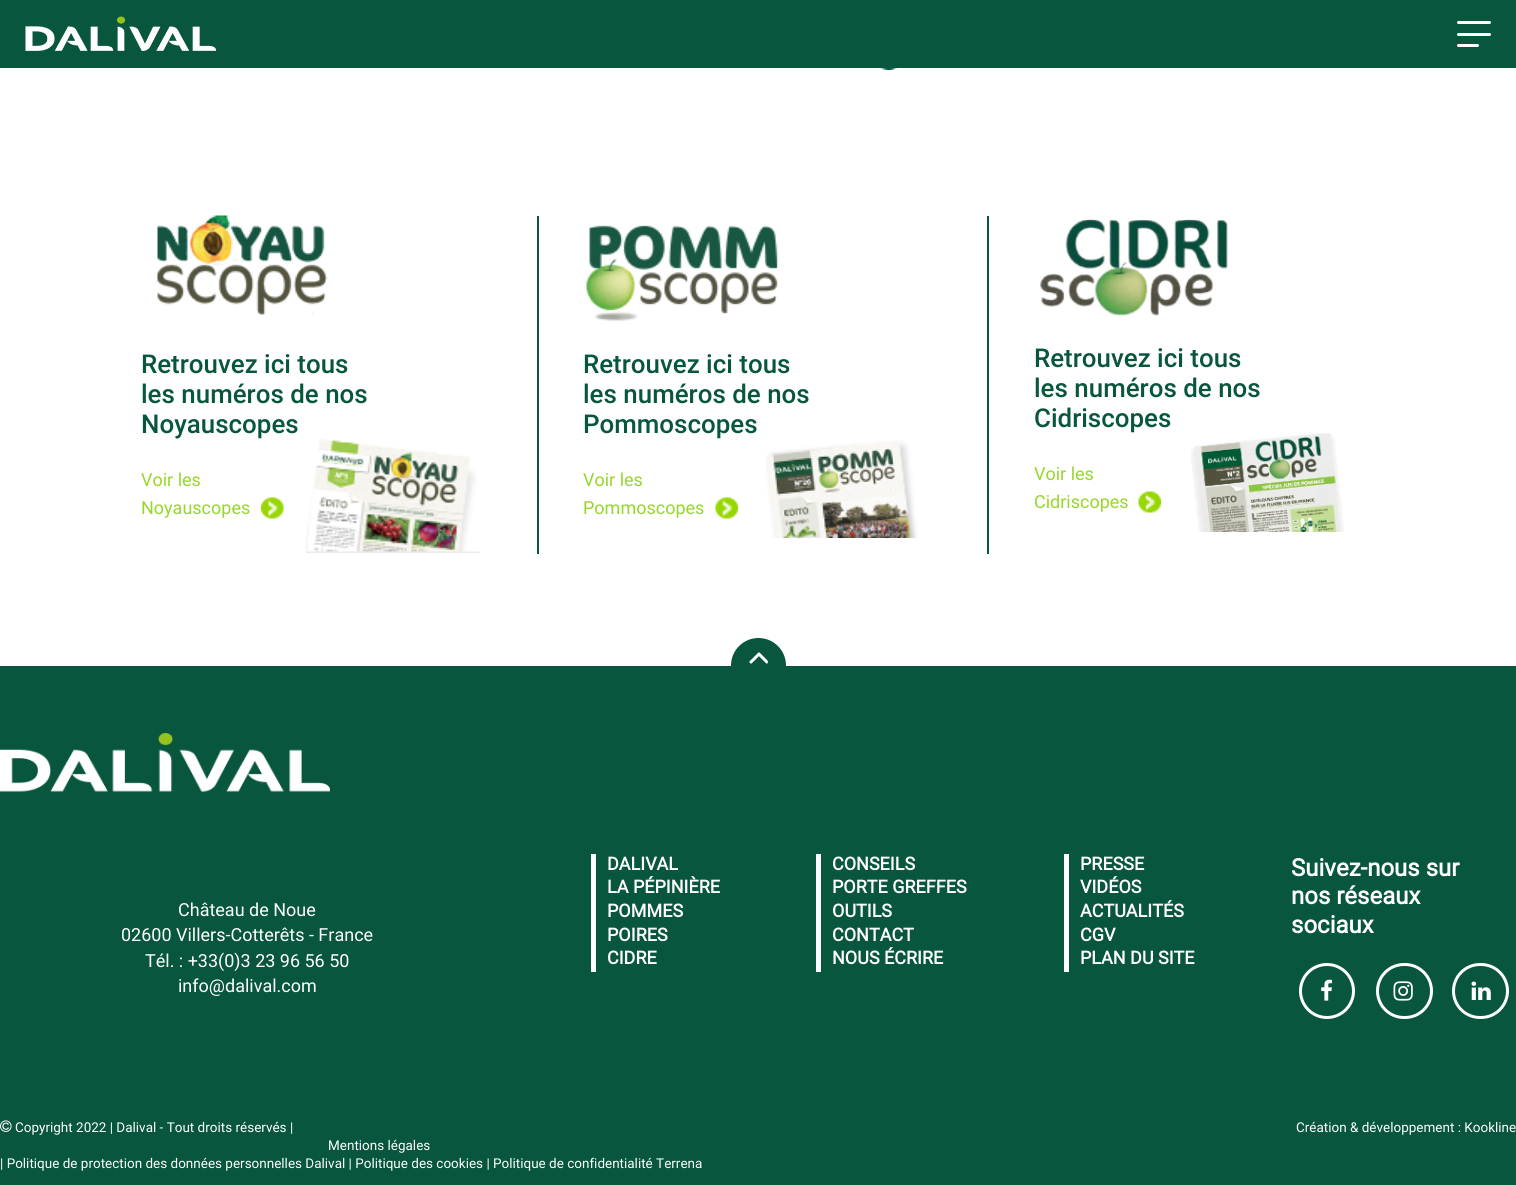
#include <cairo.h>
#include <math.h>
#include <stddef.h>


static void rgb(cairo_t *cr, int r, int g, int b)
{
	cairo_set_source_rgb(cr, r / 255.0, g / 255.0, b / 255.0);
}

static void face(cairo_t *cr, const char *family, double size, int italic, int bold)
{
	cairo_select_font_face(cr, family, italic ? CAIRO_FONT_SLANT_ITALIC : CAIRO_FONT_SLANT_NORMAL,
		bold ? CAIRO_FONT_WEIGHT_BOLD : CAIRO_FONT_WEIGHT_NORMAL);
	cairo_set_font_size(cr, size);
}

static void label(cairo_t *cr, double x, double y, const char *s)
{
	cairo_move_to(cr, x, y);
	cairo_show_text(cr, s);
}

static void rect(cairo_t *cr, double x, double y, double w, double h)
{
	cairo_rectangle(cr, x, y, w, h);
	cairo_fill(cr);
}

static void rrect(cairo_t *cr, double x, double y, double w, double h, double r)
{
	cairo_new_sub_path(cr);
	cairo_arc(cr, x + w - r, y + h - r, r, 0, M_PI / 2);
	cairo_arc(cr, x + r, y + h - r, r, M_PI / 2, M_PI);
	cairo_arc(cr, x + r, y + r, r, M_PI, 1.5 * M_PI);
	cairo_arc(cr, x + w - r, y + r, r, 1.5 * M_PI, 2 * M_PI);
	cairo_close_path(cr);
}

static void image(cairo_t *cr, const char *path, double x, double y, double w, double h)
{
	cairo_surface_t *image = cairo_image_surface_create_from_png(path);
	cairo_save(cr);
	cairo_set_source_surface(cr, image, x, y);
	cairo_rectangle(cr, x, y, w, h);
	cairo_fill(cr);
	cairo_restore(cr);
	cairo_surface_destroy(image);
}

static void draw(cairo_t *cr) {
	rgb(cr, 255, 255, 255);
	cairo_paint(cr);
	rgb(cr, 7, 86, 61);
	rect(cr, 0, 0, 1516, 68);
	image(cr, "image0.png", 25, 16, 191, 35);
	rgb(cr, 255, 255, 255);
	rrect(cr, 1457, 21, 34, 3, 1.5);
	cairo_fill(cr);
	rrect(cr, 1457, 33, 34, 3, 1.5);
	cairo_fill(cr);
	rrect(cr, 1457, 44, 22, 3, 1.5);
	cairo_fill(cr);
	image(cr, "image1.png", 880, 68, 18, 2);
	image(cr, "image2.png", 157, 215, 171, 100);
	face(cr, "Roboto Medium", 25.9, 0, 0);
	rgb(cr, 7, 86, 61);
	label(cr, 141, 373, "Retrouvez ici tous");
	label(cr, 141, 403, "les numéros de nos");
	label(cr, 141, 433, "Noyauscopes");
	image(cr, "image3.png", 306, 439, 174, 114);
	face(cr, "Roboto", 18, 0, 0);
	rgb(cr, 151, 215, 42);
	label(cr, 141, 486, "Voir les");
	label(cr, 141, 514, "Noyauscopes");
	image(cr, "image4.png", 261, 497, 23, 22);
	rgb(cr, 7, 86, 61);
	rect(cr, 987, 216, 2, 338);
	rect(cr, 537, 216, 2, 338);
	image(cr, "image5.png", 586, 225, 192, 96);
	face(cr, "Roboto Medium", 25.9, 0, 0);
	label(cr, 583, 373, "Retrouvez ici tous");
	label(cr, 583, 403, "les numéros de nos");
	label(cr, 583, 433, "Pommoscopes");
	image(cr, "image6.png", 765, 440, 153, 98);
	face(cr, "Roboto", 18, 0, 0);
	rgb(cr, 151, 215, 42);
	label(cr, 583, 486, "Voir les");
	label(cr, 583, 514, "Pommoscopes");
	image(cr, "image7.png", 715, 497, 23, 22);
	image(cr, "image8.png", 1040, 219, 188, 97);
	face(cr, "Roboto Medium", 25.9, 0, 0);
	rgb(cr, 7, 86, 61);
	label(cr, 1034, 367, "Retrouvez ici tous");
	label(cr, 1034, 397, "les numéros de nos");
	label(cr, 1034, 427, "Cidriscopes");
	image(cr, "image9.png", 1191, 433, 153, 99);
	face(cr, "Roboto", 18, 0, 0);
	rgb(cr, 151, 215, 42);
	label(cr, 1034, 480, "Voir les");
	label(cr, 1034, 508, "Cidriscopes");
	image(cr, "image7.png", 1138, 491, 23, 22);
	rgb(cr, 7, 86, 61);
	rect(cr, 0, 666, 1516, 519);
	cairo_arc(cr, 758.5, 665.5, 27.5, 0, 2 * M_PI);
	cairo_fill(cr);
	image(cr, "image10.png", 749, 652, 19, 12);
	image(cr, "image11.png", 0, 733, 330, 59);
	rgb(cr, 255, 255, 255);
	label(cr, 178, 916, "Château de Noue");
	label(cr, 121, 941, "02600 Villers-Cotterêts - France");
	label(cr, 145, 967, "Tél. : +33(0)3 23 96 56 50");
	label(cr, 178, 992, "info@dalival.com");
	rect(cr, 591, 854, 5, 118);
	face(cr, "Roboto", 18, 0, 1);
	label(cr, 607, 870, "DALIVAL");
	label(cr, 607, 893, "LA PÉPINIÈRE");
	label(cr, 607, 917, "POMMES");
	label(cr, 607, 941, "POIRES");
	label(cr, 607, 964, "CIDRE");
	rect(cr, 816, 854, 5, 118);
	label(cr, 832, 870, "CONSEILS");
	label(cr, 832, 893, "PORTE GREFFES");
	label(cr, 832, 917, "OUTILS");
	label(cr, 832, 941, "CONTACT");
	label(cr, 832, 964, "NOUS ÉCRIRE");
	rect(cr, 1064, 854, 5, 118);
	label(cr, 1080, 870, "PRESSE");
	label(cr, 1080, 893, "VIDÉOS");
	label(cr, 1080, 917, "ACTUALITÉS");
	label(cr, 1080, 941, "CGV");
	label(cr, 1080, 964, "PLAN DU SITE");
	face(cr, "Roboto", 24, 0, 1);
	label(cr, 1291, 876, "Suivez-nous sur");
	label(cr, 1291, 904, "nos réseaux");
	label(cr, 1291, 933, "sociaux");
	cairo_new_path(cr);
	cairo_arc(cr, 1327, 991, 26.5, 0, 2 * M_PI);
	cairo_set_line_width(cr, 3);
	cairo_stroke(cr);
	image(cr, "image12.png", 1321, 979, 12, 22);
	rrect(cr, 1377.5, 964.5, 54, 53, 26.5);
	cairo_stroke(cr);
	image(cr, "image13.png", 1393, 981, 20, 20);
	rrect(cr, 1453.5, 964.5, 54, 53, 26.5);
	cairo_stroke(cr);
	image(cr, "image14.png", 1471, 981, 20, 19);
	image(cr, "image15.png", 0, 1120, 12, 12);
	face(cr, "Roboto", 13.5, 0, 0);
	label(cr, 15, 1132, "Copyright 2022 | Dalival - Tout droits réservés |");
	label(cr, 328, 1150, "Mentions légales");
	label(cr, 0, 1168, "| Politique de protection des données personnelles Dalival | Politique des cookies | Politique de confidentialité Terrena");
	label(cr, 1296, 1132, "Création & développement : Kookline");
}

int main(void) {
	cairo_surface_t *surface = cairo_image_surface_create(CAIRO_FORMAT_RGB24, 1516, 1185);
	cairo_t *cr = cairo_create(surface);
	cairo_font_options_t *options = cairo_font_options_create();
	cairo_font_options_set_hint_metrics(options, CAIRO_HINT_METRICS_OFF);
	cairo_font_options_set_hint_style(options, CAIRO_HINT_STYLE_NONE);
	cairo_set_font_options(cr, options);
	cairo_set_miter_limit(cr, 4);
	draw(cr);
	cairo_surface_write_to_png(surface, "render.png");
	cairo_font_options_destroy(options);
	cairo_destroy(cr);
	cairo_surface_destroy(surface);
	return 0;
}
